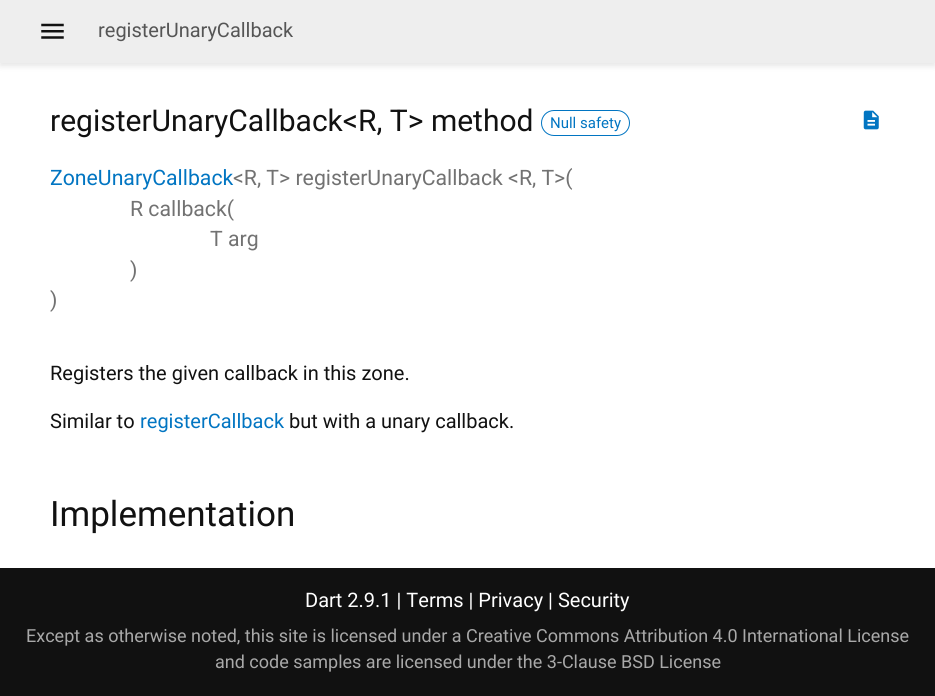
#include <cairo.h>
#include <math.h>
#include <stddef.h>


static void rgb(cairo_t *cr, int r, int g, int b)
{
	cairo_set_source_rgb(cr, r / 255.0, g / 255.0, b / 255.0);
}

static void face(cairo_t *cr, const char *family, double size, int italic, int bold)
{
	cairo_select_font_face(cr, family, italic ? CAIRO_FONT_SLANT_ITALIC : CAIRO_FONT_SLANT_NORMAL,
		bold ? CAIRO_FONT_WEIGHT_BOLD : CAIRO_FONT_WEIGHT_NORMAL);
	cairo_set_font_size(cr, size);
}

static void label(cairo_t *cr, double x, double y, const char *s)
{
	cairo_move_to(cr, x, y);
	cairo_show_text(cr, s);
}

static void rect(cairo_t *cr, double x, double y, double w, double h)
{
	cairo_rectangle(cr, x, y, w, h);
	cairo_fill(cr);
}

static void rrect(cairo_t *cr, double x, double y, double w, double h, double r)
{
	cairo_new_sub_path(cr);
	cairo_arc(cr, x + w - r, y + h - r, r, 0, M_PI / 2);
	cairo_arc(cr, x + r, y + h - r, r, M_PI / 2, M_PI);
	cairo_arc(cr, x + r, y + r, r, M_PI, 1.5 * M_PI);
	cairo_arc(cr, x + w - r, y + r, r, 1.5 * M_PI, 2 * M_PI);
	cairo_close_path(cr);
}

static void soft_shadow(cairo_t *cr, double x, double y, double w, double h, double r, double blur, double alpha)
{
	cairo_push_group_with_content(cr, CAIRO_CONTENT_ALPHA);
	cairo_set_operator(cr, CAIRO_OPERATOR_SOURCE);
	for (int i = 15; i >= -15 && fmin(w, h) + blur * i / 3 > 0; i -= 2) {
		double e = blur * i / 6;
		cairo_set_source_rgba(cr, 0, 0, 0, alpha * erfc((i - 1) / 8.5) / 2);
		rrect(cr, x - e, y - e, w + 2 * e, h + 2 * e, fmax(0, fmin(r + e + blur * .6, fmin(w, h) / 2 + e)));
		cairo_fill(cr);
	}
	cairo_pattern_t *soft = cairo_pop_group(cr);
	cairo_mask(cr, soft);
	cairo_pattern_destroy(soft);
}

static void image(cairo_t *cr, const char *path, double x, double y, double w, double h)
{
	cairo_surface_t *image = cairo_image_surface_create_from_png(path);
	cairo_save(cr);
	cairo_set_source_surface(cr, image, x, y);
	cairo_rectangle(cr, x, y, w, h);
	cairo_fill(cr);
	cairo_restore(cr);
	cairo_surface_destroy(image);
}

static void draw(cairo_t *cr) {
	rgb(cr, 255, 255, 255);
	cairo_paint(cr);
	rgb(cr, 0, 0, 0);
	soft_shadow(cr, 0, 4, 935, 62, 0, 3, 0.1);
	rgb(cr, 238, 238, 238);
	rect(cr, 0, 0, 935, 63);
	image(cr, "image0.png", 41, 23, 23, 16);
	face(cr, "Roboto", 20, 0, 0);
	rgb(cr, 85, 85, 85);
	label(cr, 98, 37, "registerUnaryCallback");
	face(cr, "Roboto", 30, 0, 0);
	rgb(cr, 17, 17, 17);
	label(cr, 50, 131, "registerUnaryCallback<R, T> method");
	rrect(cr, 541.5, 110.5, 88, 25, 12.5);
	rgb(cr, 1, 117, 194);
	cairo_set_line_width(cr, 1);
	cairo_stroke(cr);
	face(cr, "Roboto", 15, 0, 0);
	label(cr, 550, 128, "Null safety");
	image(cr, "image1.png", 863, 110, 16, 20);
	face(cr, "Roboto", 21.25, 0, 0);
	label(cr, 50, 185, "ZoneUnaryCallback");
	rgb(cr, 114, 114, 114);
	label(cr, 233, 185, "<R, T> registerUnaryCallback <R, T>(");
	label(cr, 130, 216, "R callback(");
	label(cr, 210, 246, "T arg");
	label(cr, 130, 277, ")");
	label(cr, 50, 307, ")");
	face(cr, "Roboto", 20, 0, 0);
	rgb(cr, 17, 17, 17);
	label(cr, 50, 380, "Registers the given callback in this zone.");
	label(cr, 50, 428, "Similar to");
	rgb(cr, 1, 117, 194);
	label(cr, 140, 428, "registerCallback");
	rgb(cr, 17, 17, 17);
	label(cr, 289, 428, "but with a unary callback.");
	face(cr, "Roboto", 35, 0, 0);
	label(cr, 50, 526, "Implementation");
	rect(cr, 0, 568, 935, 128);
	face(cr, "Roboto", 20, 0, 0);
	rgb(cr, 255, 255, 255);
	label(cr, 305, 607, "Dart 2.9.1 | Terms | Privacy | Security");
	face(cr, "Roboto", 18, 0, 0);
	rgb(cr, 169, 169, 169);
	label(cr, 26, 642, "Except as otherwise noted, this site is licensed under a Creative Commons Attribution 4.0 International License");
	label(cr, 215, 668, "and code samples are licensed under the 3-Clause BSD License");
}

int main(void) {
	cairo_surface_t *surface = cairo_image_surface_create(CAIRO_FORMAT_RGB24, 935, 696);
	cairo_t *cr = cairo_create(surface);
	cairo_font_options_t *options = cairo_font_options_create();
	cairo_font_options_set_hint_metrics(options, CAIRO_HINT_METRICS_OFF);
	cairo_font_options_set_hint_style(options, CAIRO_HINT_STYLE_NONE);
	cairo_set_font_options(cr, options);
	cairo_set_miter_limit(cr, 4);
	draw(cr);
	cairo_surface_write_to_png(surface, "render.png");
	cairo_font_options_destroy(options);
	cairo_destroy(cr);
	cairo_surface_destroy(surface);
	return 0;
}
